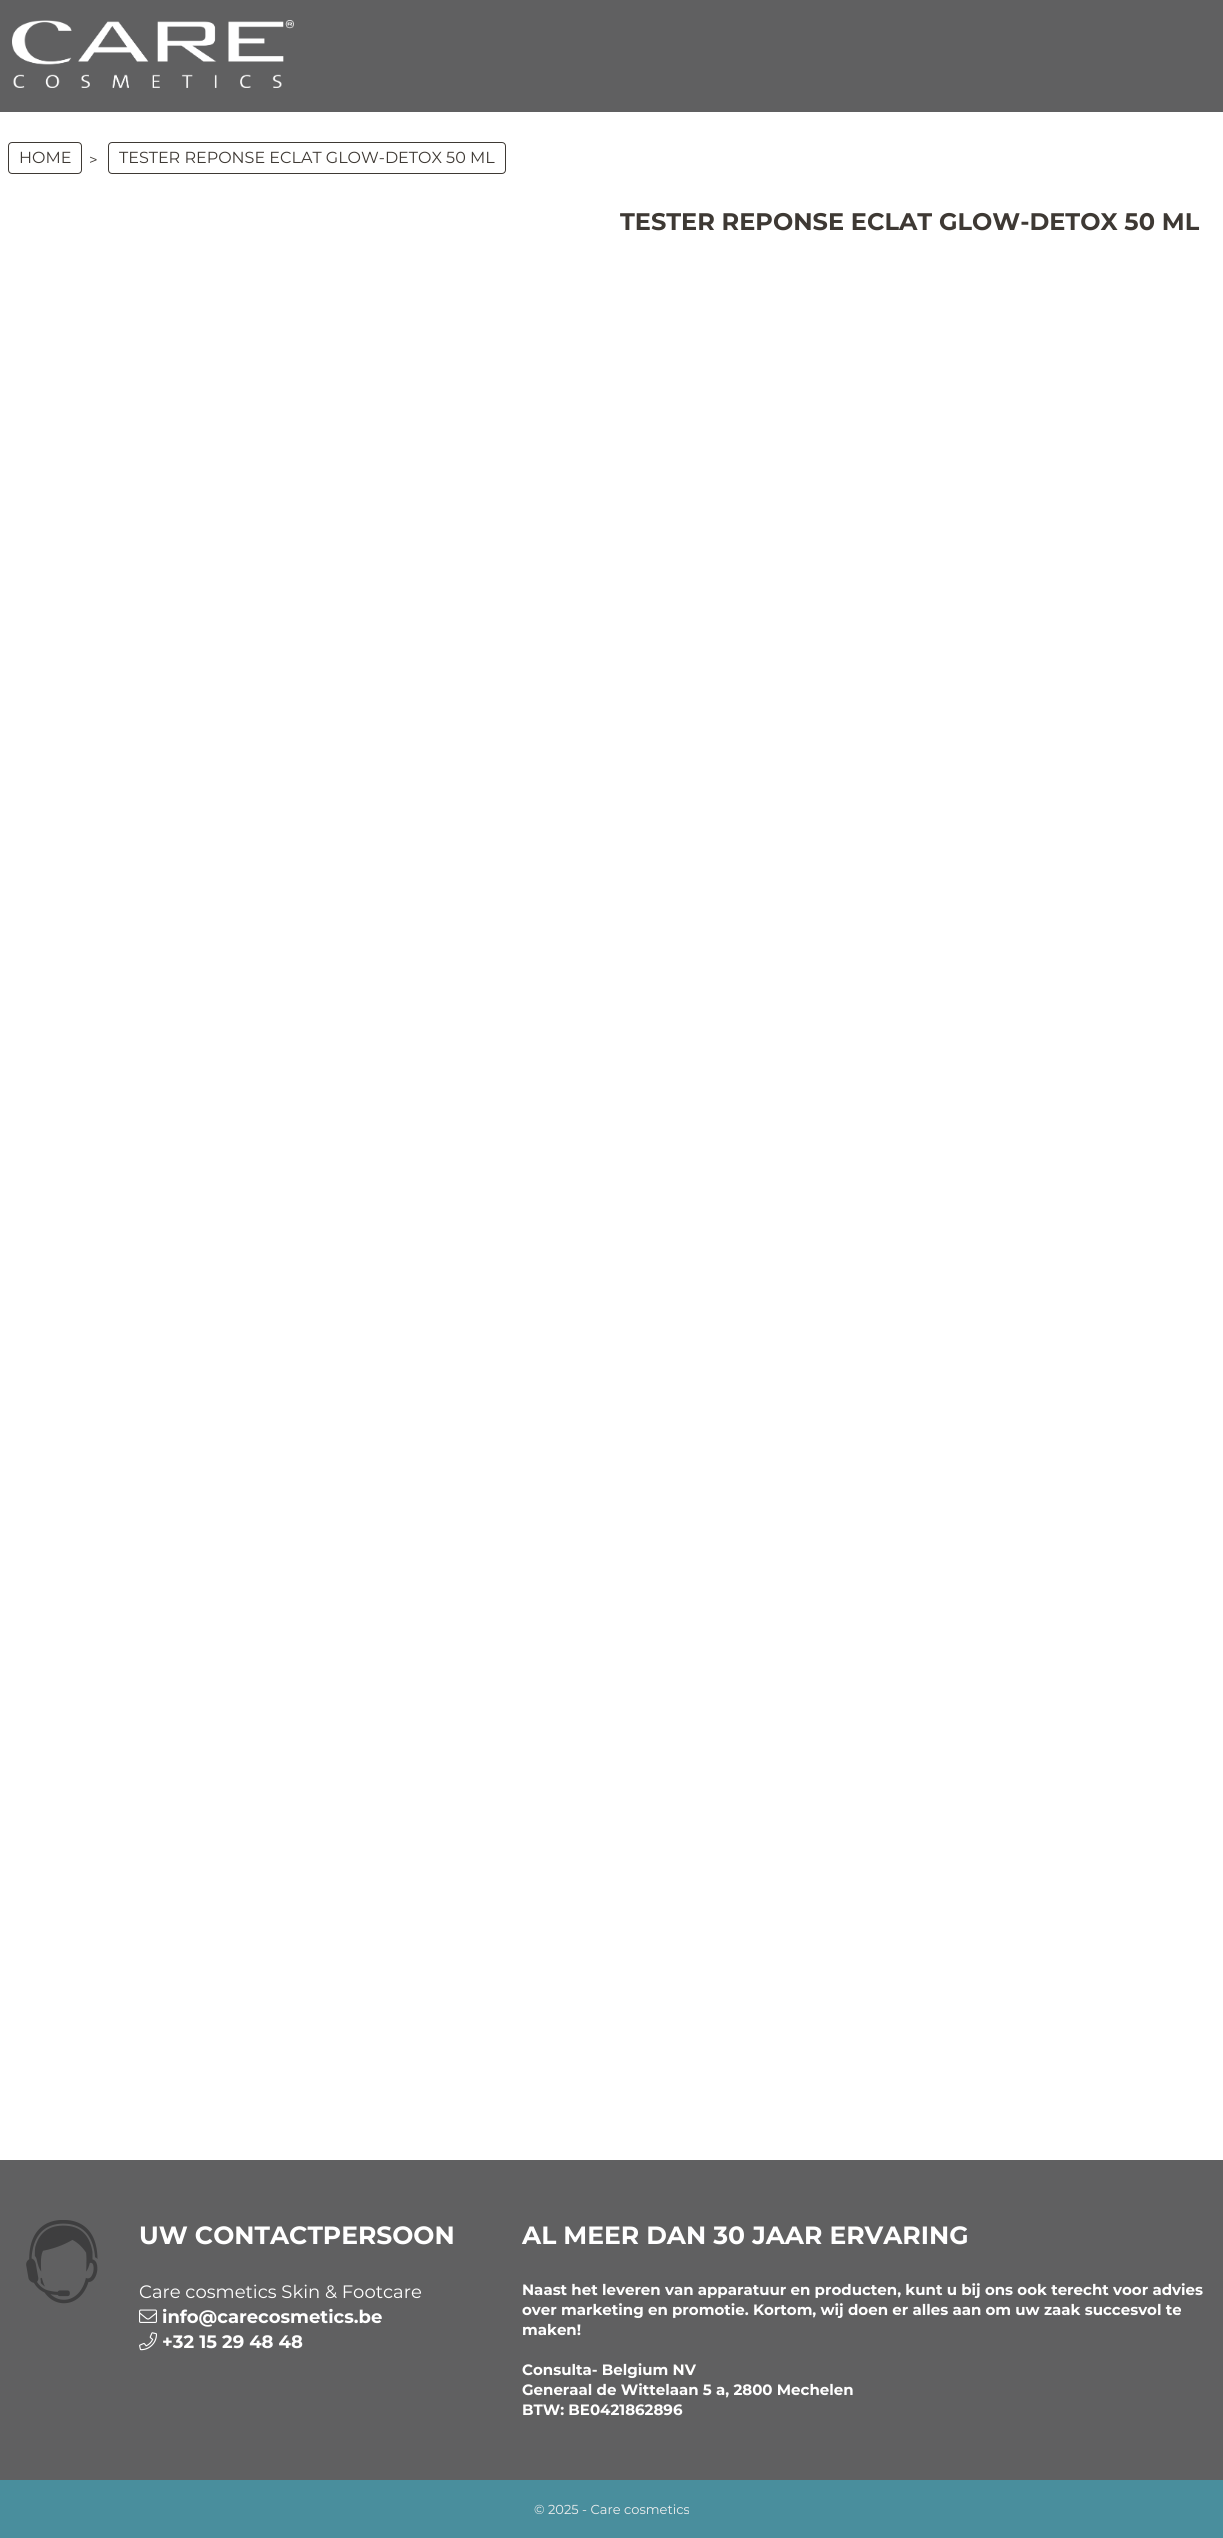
#include <cairo.h>
#include <math.h>
#include <stddef.h>


static void rgb(cairo_t *cr, int r, int g, int b)
{
	cairo_set_source_rgb(cr, r / 255.0, g / 255.0, b / 255.0);
}

static void face(cairo_t *cr, const char *family, double size, int italic, int bold)
{
	cairo_select_font_face(cr, family, italic ? CAIRO_FONT_SLANT_ITALIC : CAIRO_FONT_SLANT_NORMAL,
		bold ? CAIRO_FONT_WEIGHT_BOLD : CAIRO_FONT_WEIGHT_NORMAL);
	cairo_set_font_size(cr, size);
}

static void label(cairo_t *cr, double x, double y, const char *s)
{
	cairo_move_to(cr, x, y);
	cairo_show_text(cr, s);
}

static void rect(cairo_t *cr, double x, double y, double w, double h)
{
	cairo_rectangle(cr, x, y, w, h);
	cairo_fill(cr);
}

static void rrect(cairo_t *cr, double x, double y, double w, double h, double r)
{
	cairo_new_sub_path(cr);
	cairo_arc(cr, x + w - r, y + h - r, r, 0, M_PI / 2);
	cairo_arc(cr, x + r, y + h - r, r, M_PI / 2, M_PI);
	cairo_arc(cr, x + r, y + r, r, M_PI, 1.5 * M_PI);
	cairo_arc(cr, x + w - r, y + r, r, 1.5 * M_PI, 2 * M_PI);
	cairo_close_path(cr);
}

static void image(cairo_t *cr, const char *path, double x, double y, double w, double h)
{
	cairo_surface_t *image = cairo_image_surface_create_from_png(path);
	cairo_save(cr);
	cairo_set_source_surface(cr, image, x, y);
	cairo_rectangle(cr, x, y, w, h);
	cairo_fill(cr);
	cairo_restore(cr);
	cairo_surface_destroy(image);
}

static void draw(cairo_t *cr) {
	rgb(cr, 255, 255, 255);
	cairo_paint(cr);
	rgb(cr, 96, 96, 97);
	rect(cr, 0, 0, 1223, 112);
	image(cr, "image0.png", 12, 20, 282, 68);
	rrect(cr, 8.5, 142.5, 73, 31, 3.5);
	rgb(cr, 62, 57, 52);
	cairo_set_line_width(cr, 1);
	cairo_stroke(cr);
	face(cr, "Montserrat", 16, 0, 0);
	label(cr, 19, 163, "HOME");
	face(cr, "Montserrat", 15, 0, 0);
	label(cr, 89, 165, ">");
	rrect(cr, 108.5, 142.5, 397, 31, 3.5);
	cairo_stroke(cr);
	face(cr, "Montserrat", 16, 0, 0);
	label(cr, 119, 163, "TESTER REPONSE ECLAT GLOW-DETOX 50 ML");
	face(cr, "Montserrat", 24, 0, 1);
	label(cr, 620, 230, "TESTER REPONSE ECLAT GLOW-DETOX 50 ML");
	rgb(cr, 96, 96, 97);
	rect(cr, 0, 2160, 1223, 320);
	image(cr, "image1.png", 26, 2220, 72, 84);
	face(cr, "Montserrat", 25, 0, 1);
	rgb(cr, 255, 255, 255);
	label(cr, 139, 2244, "UW CONTACTPERSOON");
	face(cr, "Montserrat", 18, 0, 0);
	label(cr, 139, 2298, "Care cosmetics Skin & Footcare");
	image(cr, "image2.png", 139, 2309, 18, 14);
	face(cr, "Montserrat", 18, 0, 1);
	label(cr, 162, 2323, "info@carecosmetics.be");
	image(cr, "image3.png", 139, 2332, 18, 19);
	label(cr, 162, 2348, "+32 15 29 48 48");
	face(cr, "Montserrat", 25, 0, 1);
	label(cr, 522, 2244, "AL MEER DAN 30 JAAR ERVARING");
	face(cr, "Montserrat", 15, 0, 1);
	label(cr, 522, 2295, "Naast het leveren van apparatuur en producten, kunt u bij ons ook terecht voor advies");
	label(cr, 522, 2315, "over marketing en promotie. Kortom, wij doen er alles aan om uw zaak succesvol te");
	label(cr, 522, 2335, "maken!");
	label(cr, 522, 2375, "Consulta- Belgium NV");
	label(cr, 522, 2395, "Generaal de Wittelaan 5 a, 2800 Mechelen");
	label(cr, 522, 2415, "BTW: BE0421862896");
	rgb(cr, 73, 142, 157);
	rect(cr, 0, 2480, 1223, 58);
	face(cr, "Montserrat", 13, 0, 0);
	rgb(cr, 238, 238, 238);
	label(cr, 534, 2514, "© 2025 - Care cosmetics");
}

int main(void) {
	cairo_surface_t *surface = cairo_image_surface_create(CAIRO_FORMAT_RGB24, 1223, 2538);
	cairo_t *cr = cairo_create(surface);
	cairo_font_options_t *options = cairo_font_options_create();
	cairo_font_options_set_hint_metrics(options, CAIRO_HINT_METRICS_OFF);
	cairo_font_options_set_hint_style(options, CAIRO_HINT_STYLE_NONE);
	cairo_set_font_options(cr, options);
	cairo_set_miter_limit(cr, 4);
	draw(cr);
	cairo_surface_write_to_png(surface, "render.png");
	cairo_font_options_destroy(options);
	cairo_destroy(cr);
	cairo_surface_destroy(surface);
	return 0;
}
